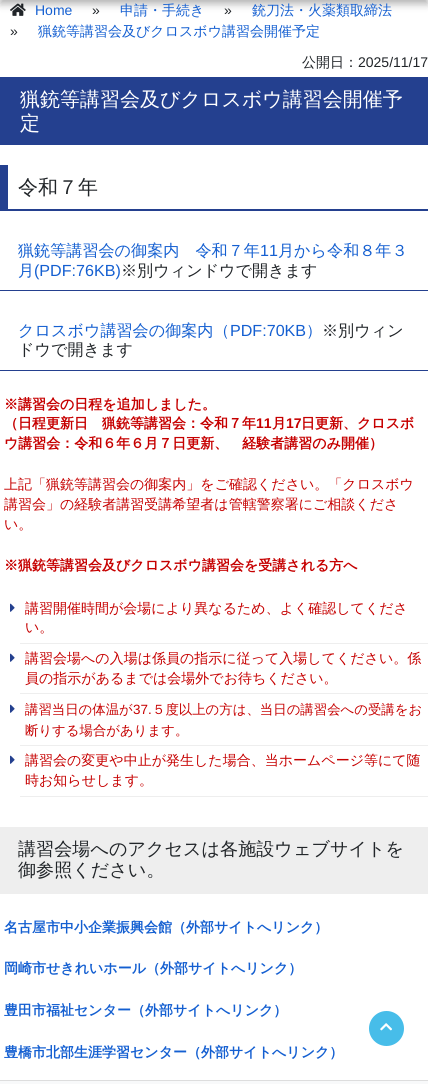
#include <cairo.h>
#include <math.h>
#include <stddef.h>


static void rgb(cairo_t *cr, int r, int g, int b)
{
	cairo_set_source_rgb(cr, r / 255.0, g / 255.0, b / 255.0);
}

static void face(cairo_t *cr, const char *family, double size, int italic, int bold)
{
	cairo_select_font_face(cr, family, italic ? CAIRO_FONT_SLANT_ITALIC : CAIRO_FONT_SLANT_NORMAL,
		bold ? CAIRO_FONT_WEIGHT_BOLD : CAIRO_FONT_WEIGHT_NORMAL);
	cairo_set_font_size(cr, size);
}

static void label(cairo_t *cr, double x, double y, const char *s)
{
	cairo_move_to(cr, x, y);
	cairo_show_text(cr, s);
}

static void rect(cairo_t *cr, double x, double y, double w, double h)
{
	cairo_rectangle(cr, x, y, w, h);
	cairo_fill(cr);
}

static void rrect(cairo_t *cr, double x, double y, double w, double h, double r)
{
	cairo_new_sub_path(cr);
	cairo_arc(cr, x + w - r, y + h - r, r, 0, M_PI / 2);
	cairo_arc(cr, x + r, y + h - r, r, M_PI / 2, M_PI);
	cairo_arc(cr, x + r, y + r, r, M_PI, 1.5 * M_PI);
	cairo_arc(cr, x + w - r, y + r, r, 1.5 * M_PI, 2 * M_PI);
	cairo_close_path(cr);
}

static void soft_shadow(cairo_t *cr, double x, double y, double w, double h, double r, double blur, double alpha)
{
	cairo_push_group_with_content(cr, CAIRO_CONTENT_ALPHA);
	cairo_set_operator(cr, CAIRO_OPERATOR_SOURCE);
	for (int i = 15; i >= -15 && fmin(w, h) + blur * i / 3 > 0; i -= 2) {
		double e = blur * i / 6;
		cairo_set_source_rgba(cr, 0, 0, 0, alpha * erfc((i - 1) / 8.5) / 2);
		rrect(cr, x - e, y - e, w + 2 * e, h + 2 * e, fmax(0, fmin(r + e + blur * .6, fmin(w, h) / 2 + e)));
		cairo_fill(cr);
	}
	cairo_pattern_t *soft = cairo_pop_group(cr);
	cairo_mask(cr, soft);
	cairo_pattern_destroy(soft);
}

static void image(cairo_t *cr, const char *path, double x, double y, double w, double h)
{
	cairo_surface_t *image = cairo_image_surface_create_from_png(path);
	cairo_save(cr);
	cairo_set_source_surface(cr, image, x, y);
	cairo_rectangle(cr, x, y, w, h);
	cairo_fill(cr);
	cairo_restore(cr);
	cairo_surface_destroy(image);
}

static void draw(cairo_t *cr) {
	rgb(cr, 255, 255, 255);
	cairo_paint(cr);
	image(cr, "image0.png", 10, 3, 16, 13);
	rgb(cr, 0, 0, 0);
	soft_shadow(cr, 0, -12, 428, 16, 0, 4, 0.3);
	face(cr, "Liberation Sans", 14, 0, 0);
	rgb(cr, 20, 95, 209);
	label(cr, 35, 15, "Home");
	rgb(cr, 33, 37, 41);
	label(cr, 92, 15, "»");
	face(cr, "WenQuanYi Zen Hei Medium", 14, 0, 0);
	rgb(cr, 20, 95, 209);
	label(cr, 120, 15, "申請・手続き");
	face(cr, "Liberation Sans", 14, 0, 0);
	rgb(cr, 33, 37, 41);
	label(cr, 224, 15, "»");
	face(cr, "WenQuanYi Zen Hei Medium", 14, 0, 0);
	rgb(cr, 20, 95, 209);
	label(cr, 252, 15, "銃刀法・火薬類取締法");
	face(cr, "Liberation Sans", 14, 0, 0);
	rgb(cr, 33, 37, 41);
	label(cr, 10, 36, "»");
	face(cr, "WenQuanYi Zen Hei Medium", 14, 0, 0);
	rgb(cr, 20, 95, 209);
	label(cr, 38, 36, "猟銃等講習会及びクロスボウ講習会開催予定");
	rgb(cr, 33, 37, 41);
	label(cr, 302, 67, "公開日：");
	face(cr, "Liberation Sans", 14, 0, 0);
	label(cr, 358, 67, "2025/11/17");
	rgb(cr, 36, 64, 143);
	rect(cr, 0, 77, 428, 68);
	face(cr, "WenQuanYi Zen Hei Medium", 20, 0, 0);
	rgb(cr, 255, 255, 255);
	label(cr, 20, 106, "猟銃等講習会及びクロスボウ講習会開催予");
	label(cr, 20, 130, "定");
	rgb(cr, 36, 64, 143);
	rect(cr, 0, 209, 428, 2);
	rect(cr, 0, 165, 8, 46);
	rgb(cr, 33, 37, 41);
	label(cr, 18, 194, "令和７年");
	rgb(cr, 36, 64, 143);
	rect(cr, 0, 290, 428, 1);
	face(cr, "WenQuanYi Zen Hei Medium", 16.1, 0, 0);
	rgb(cr, 20, 95, 209);
	label(cr, 18, 256, "猟銃等講習会の御案内　令和７年");
	face(cr, "Liberation Sans", 16.1, 0, 0);
	label(cr, 260, 256, "11");
	face(cr, "WenQuanYi Zen Hei Medium", 16.1, 0, 0);
	label(cr, 278, 256, "月から令和８年３");
	label(cr, 18, 276, "月");
	face(cr, "Liberation Sans", 16.1, 0, 0);
	label(cr, 34, 276, "(PDF:76KB)");
	face(cr, "WenQuanYi Zen Hei Medium", 16.1, 0, 0);
	rgb(cr, 33, 37, 41);
	label(cr, 121, 276, "※別ウィンドウで開きます");
	rgb(cr, 36, 64, 143);
	rect(cr, 0, 370, 428, 1);
	rgb(cr, 20, 95, 209);
	label(cr, 18, 336, "クロスボウ講習会の御案内（");
	face(cr, "Liberation Sans", 16.1, 0, 0);
	label(cr, 230, 336, "PDF:70KB");
	face(cr, "WenQuanYi Zen Hei Medium", 16.1, 0, 0);
	label(cr, 306, 336, "）");
	rgb(cr, 33, 37, 41);
	label(cr, 322, 336, "※別ウィン");
	label(cr, 18, 355, "ドウで開きます");
	face(cr, "WenQuanYi Zen Hei", 14, 0, 1);
	rgb(cr, 198, 0, 0);
	label(cr, 4, 409, "※講習会の日程を追加しました。");
	label(cr, 4, 428, "（日程更新日　猟銃等講習会：令和７年");
	face(cr, "Liberation Sans", 14, 0, 1);
	label(cr, 256, 428, "11");
	face(cr, "WenQuanYi Zen Hei", 14, 0, 1);
	label(cr, 272, 428, "月");
	face(cr, "Liberation Sans", 14, 0, 1);
	label(cr, 286, 428, "17");
	face(cr, "WenQuanYi Zen Hei", 14, 0, 1);
	label(cr, 301, 428, "日更新、クロスボ");
	label(cr, 4, 448, "ウ講習会：令和６年６月７日更新、　経験者講習のみ開催）");
	face(cr, "WenQuanYi Zen Hei Medium", 14, 0, 0);
	label(cr, 4, 489, "上記「猟銃等講習会の御案内」をご確認ください。「クロスボウ");
	label(cr, 4, 509, "講習会」の経験者講習受講希望者は管轄警察署にご相談くださ");
	label(cr, 4, 529, "い。");
	face(cr, "WenQuanYi Zen Hei", 14, 0, 1);
	label(cr, 4, 570, "※猟銃等講習会及びクロスボウ講習会を受講される方へ");
	rgb(cr, 238, 238, 238);
	rect(cr, 20, 643, 408, 1);
	image(cr, "image1.png", 10, 603, 5, 9);
	face(cr, "WenQuanYi Zen Hei Medium", 14, 0, 0);
	rgb(cr, 198, 0, 0);
	label(cr, 25, 613, "講習開催時間が会場により異なるため、よく確認してくださ");
	label(cr, 25, 632, "い。");
	rgb(cr, 238, 238, 238);
	rect(cr, 20, 693, 408, 1);
	image(cr, "image1.png", 10, 653, 5, 9);
	rgb(cr, 198, 0, 0);
	label(cr, 25, 663, "講習会場への入場は係員の指示に従って入場してください。係");
	label(cr, 25, 683, "員の指示があるまでは会場外でお待ちください。");
	rgb(cr, 238, 238, 238);
	rect(cr, 20, 745, 408, 1);
	image(cr, "image1.png", 10, 704, 5, 9);
	face(cr, "WenQuanYi Zen Hei Medium", 13.4, 0, 0);
	rgb(cr, 198, 0, 0);
	label(cr, 25, 714, "講習当日の体温が");
	face(cr, "Liberation Sans", 13.4, 0, 0);
	label(cr, 133, 714, "37.");
	face(cr, "WenQuanYi Zen Hei Medium", 13.4, 0, 0);
	label(cr, 152, 714, "５度以上の方は、当日の講習会への受講をお");
	label(cr, 25, 735, "断りする場合があります。");
	rgb(cr, 238, 238, 238);
	rect(cr, 20, 796, 408, 1);
	image(cr, "image1.png", 10, 755, 5, 9);
	face(cr, "WenQuanYi Zen Hei Medium", 14, 0, 0);
	rgb(cr, 198, 0, 0);
	label(cr, 25, 765, "講習会の変更や中止が発生した場合、当ホームページ等にて随");
	label(cr, 25, 785, "時お知らせします。");
	rgb(cr, 238, 238, 238);
	rect(cr, 0, 827, 428, 67);
	face(cr, "WenQuanYi Zen Hei Medium", 18.1, 0, 0);
	rgb(cr, 33, 37, 41);
	label(cr, 18, 855, "講習会場へのアクセスは各施設ウェブサイトを");
	label(cr, 18, 876, "御参照ください。");
	face(cr, "WenQuanYi Zen Hei", 14, 0, 1);
	rgb(cr, 20, 95, 209);
	label(cr, 4, 932, "名古屋市中小企業振興会館（外部サイトへリンク）");
	label(cr, 4, 973, "岡崎市せきれいホール（外部サイトへリンク）");
	label(cr, 4, 1015, "豊田市福祉センター（外部サイトへリンク）");
	label(cr, 4, 1057, "豊橋市北部生涯学習センター（外部サイトへリンク）");
	rgb(cr, 71, 189, 233);
	cairo_new_path(cr);
	cairo_arc(cr, 386.5, 1028.5, 17.5, 0, 2 * M_PI);
	cairo_fill(cr);
	image(cr, "image2.png", 380, 1023, 12, 8);
	rgb(cr, 248, 249, 250);
	rect(cr, 0, 1081, 428, 3);
	rgb(cr, 221, 221, 221);
	rect(cr, 0, 1080, 428, 1);
}

int main(void) {
	cairo_surface_t *surface = cairo_image_surface_create(CAIRO_FORMAT_RGB24, 428, 1084);
	cairo_t *cr = cairo_create(surface);
	cairo_font_options_t *options = cairo_font_options_create();
	cairo_font_options_set_hint_metrics(options, CAIRO_HINT_METRICS_OFF);
	cairo_font_options_set_hint_style(options, CAIRO_HINT_STYLE_NONE);
	cairo_set_font_options(cr, options);
	cairo_set_miter_limit(cr, 4);
	draw(cr);
	cairo_surface_write_to_png(surface, "render.png");
	cairo_font_options_destroy(options);
	cairo_destroy(cr);
	cairo_surface_destroy(surface);
	return 0;
}
